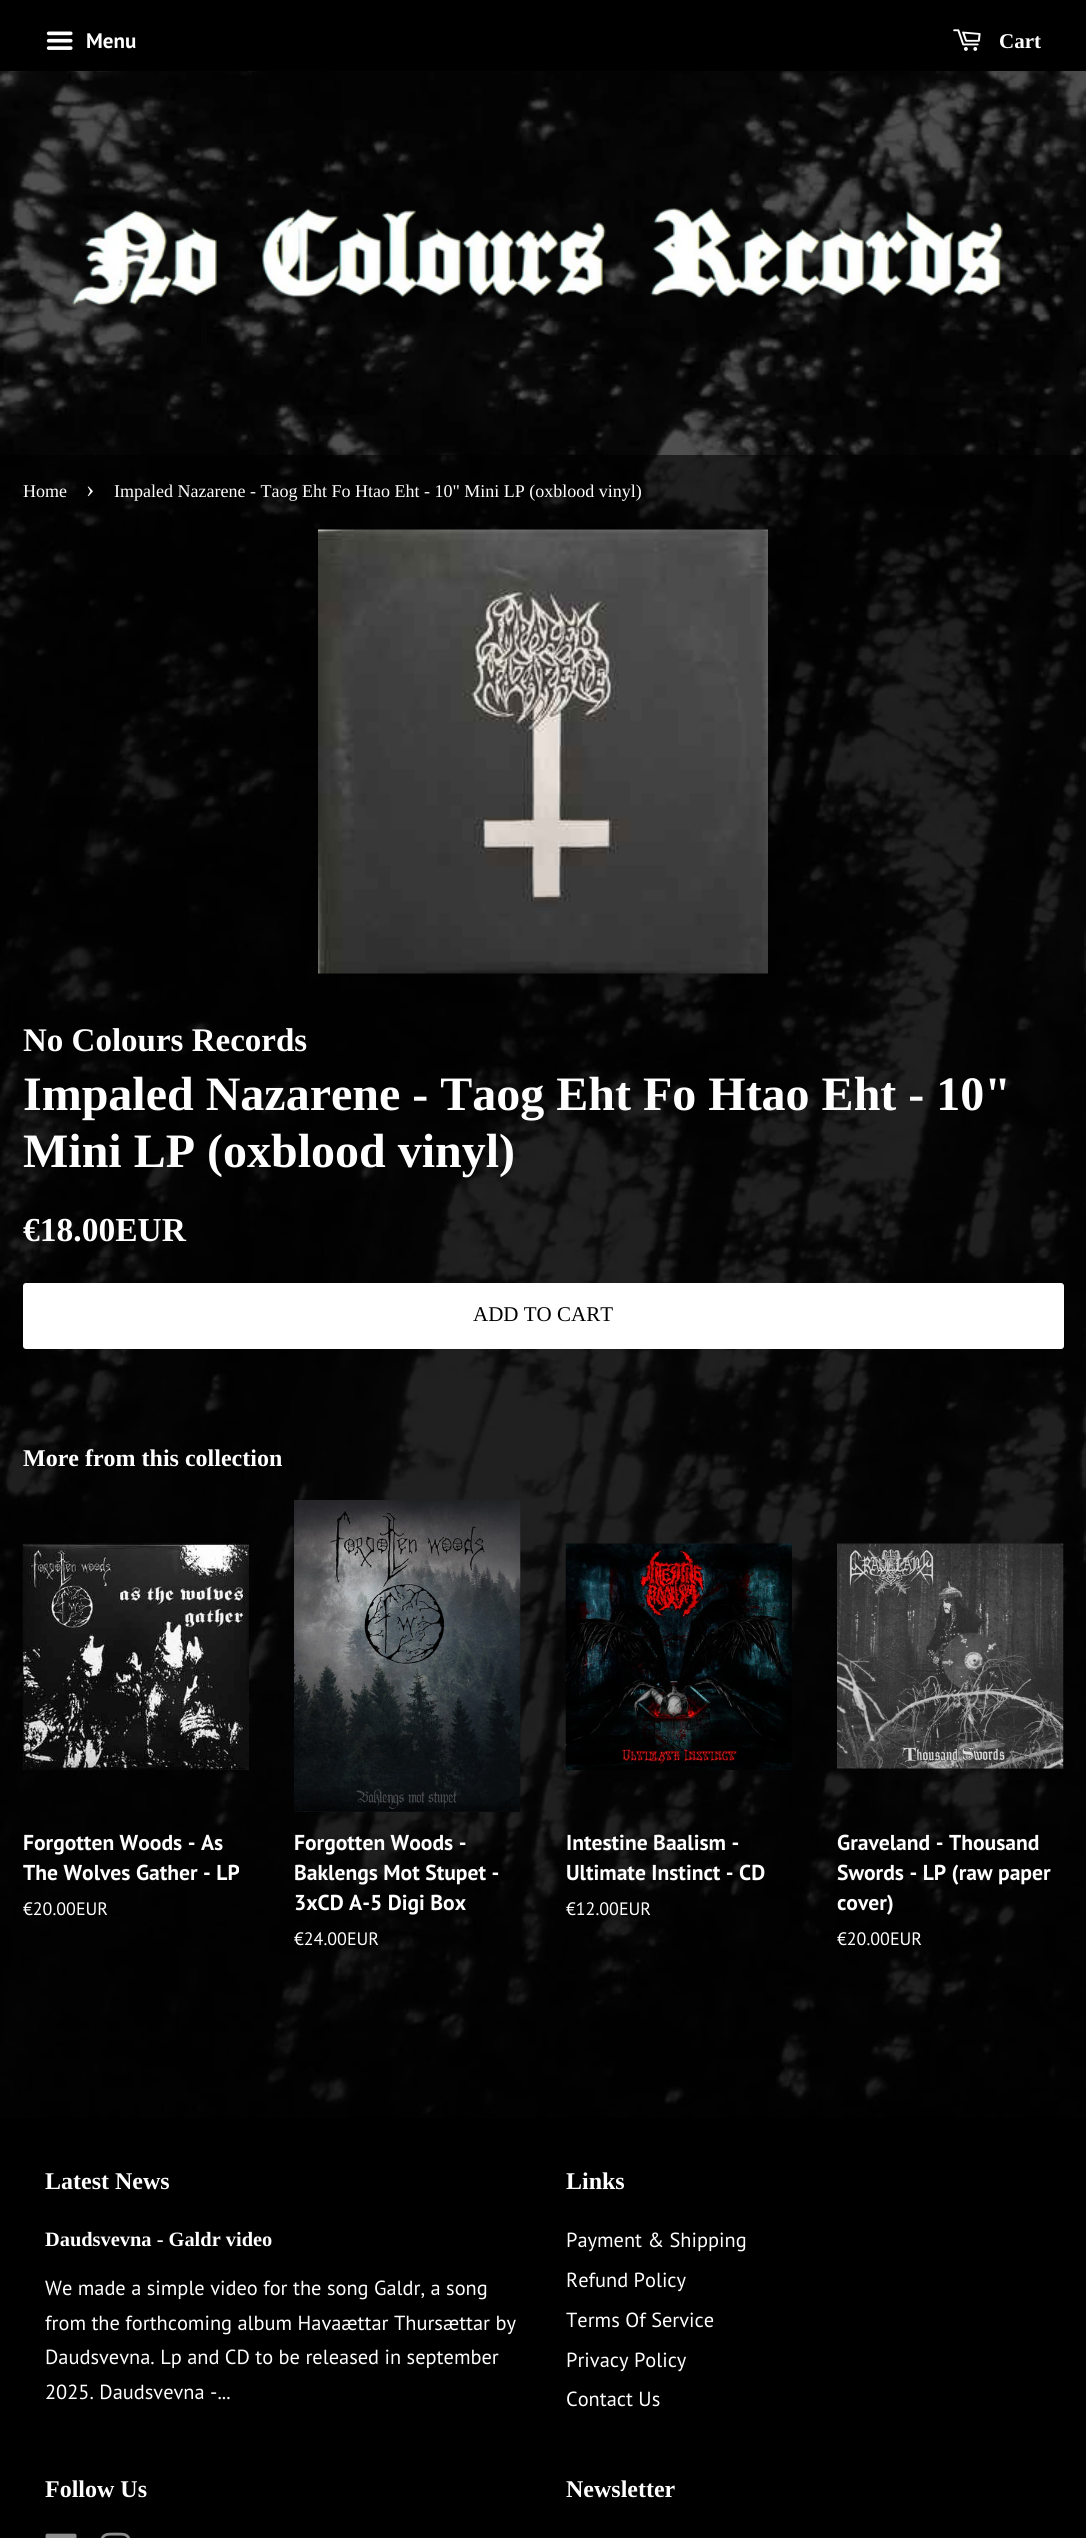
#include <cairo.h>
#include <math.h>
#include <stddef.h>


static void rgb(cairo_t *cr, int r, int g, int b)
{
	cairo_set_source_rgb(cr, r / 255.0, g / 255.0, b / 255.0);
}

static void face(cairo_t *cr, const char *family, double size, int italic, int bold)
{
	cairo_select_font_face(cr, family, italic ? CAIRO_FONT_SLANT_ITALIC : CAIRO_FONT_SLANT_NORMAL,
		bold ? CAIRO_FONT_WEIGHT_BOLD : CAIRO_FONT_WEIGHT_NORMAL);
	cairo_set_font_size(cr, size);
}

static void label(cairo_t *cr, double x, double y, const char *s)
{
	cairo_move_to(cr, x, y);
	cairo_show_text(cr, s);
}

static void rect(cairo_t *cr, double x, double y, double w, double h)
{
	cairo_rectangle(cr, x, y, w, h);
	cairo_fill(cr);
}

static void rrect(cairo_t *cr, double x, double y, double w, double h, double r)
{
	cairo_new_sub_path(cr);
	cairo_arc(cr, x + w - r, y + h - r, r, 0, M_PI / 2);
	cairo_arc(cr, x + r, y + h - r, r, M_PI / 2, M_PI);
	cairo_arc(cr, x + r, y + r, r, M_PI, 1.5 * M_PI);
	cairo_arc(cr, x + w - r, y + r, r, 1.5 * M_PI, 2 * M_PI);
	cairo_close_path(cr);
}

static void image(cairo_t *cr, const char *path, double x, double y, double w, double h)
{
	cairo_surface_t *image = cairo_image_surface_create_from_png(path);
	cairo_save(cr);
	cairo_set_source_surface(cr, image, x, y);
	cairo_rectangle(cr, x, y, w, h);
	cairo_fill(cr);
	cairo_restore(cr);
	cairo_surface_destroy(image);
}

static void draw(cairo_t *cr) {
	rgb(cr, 255, 255, 255);
	cairo_paint(cr);
	image(cr, "image0.png", 0, 71, 1086, 2047);
	rgb(cr, 0, 0, 0);
	rect(cr, 0, 0, 1086, 71);
	image(cr, "image1.png", 46, 31, 27, 19);
	face(cr, "PT Sans", 21, 0, 1);
	rgb(cr, 255, 255, 255);
	label(cr, 86, 48, "Menu");
	image(cr, "image2.png", 953, 29, 28, 22);
	face(cr, "Liberation Serif", 21, 0, 1);
	label(cr, 999, 48, "Cart");
	image(cr, "image3.png", 72, 208, 931, 98);
	cairo_set_source_rgba(cr, 0, 0, 0, 0.6);
	rect(cr, 0, 455, 1086, 1663);
	face(cr, "Liberation Serif", 18, 0, 0);
	rgb(cr, 255, 255, 255);
	label(cr, 23, 497, "Home");
	face(cr, "Liberation Serif", 25, 0, 0);
	label(cr, 86, 497, "›");
	face(cr, "Liberation Serif", 18, 0, 0);
	label(cr, 114, 497, "Impaled Nazarene - Taog Eht Fo Htao Eht - 10\" Mini LP (oxblood vinyl)");
	image(cr, "image4.png", 318, 529, 450, 445);
	face(cr, "Liberation Serif", 33, 0, 1);
	label(cr, 23, 1051, "No Colours Records");
	face(cr, "Liberation Serif", 48, 0, 1);
	label(cr, 23, 1110, "Impaled Nazarene - Taog Eht Fo Htao Eht - 10\"");
	label(cr, 23, 1167, "Mini LP (oxblood vinyl)");
	face(cr, "Liberation Serif", 33.5, 0, 1);
	label(cr, 23, 1241, "€18.00EUR");
	rrect(cr, 23, 1283, 1041, 66, 3);
	cairo_fill(cr);
	face(cr, "Liberation Serif", 21, 0, 0);
	rgb(cr, 0, 0, 0);
	label(cr, 473, 1321, "ADD TO CART");
	face(cr, "Liberation Serif", 24, 0, 1);
	rgb(cr, 255, 255, 255);
	label(cr, 23, 1466, "More from this collection");
	image(cr, "image5.png", 22, 1543, 227, 227);
	face(cr, "PT Sans", 21.6, 0, 1);
	label(cr, 23, 1850, "Forgotten Woods - As");
	label(cr, 23, 1880, "The Wolves Gather - LP");
	face(cr, "PT Sans", 18, 0, 0);
	label(cr, 23, 1915, "€20.00EUR");
	image(cr, "image6.png", 294, 1500, 227, 312);
	face(cr, "PT Sans", 21.6, 0, 1);
	label(cr, 294, 1850, "Forgotten Woods -");
	label(cr, 294, 1880, "Baklengs Mot Stupet -");
	label(cr, 294, 1910, "3xCD A-5 Digi Box");
	face(cr, "PT Sans", 18, 0, 0);
	label(cr, 294, 1945, "€24.00EUR");
	image(cr, "image7.png", 565, 1543, 227, 227);
	face(cr, "PT Sans", 21.6, 0, 1);
	label(cr, 566, 1850, "Intestine Baalism -");
	label(cr, 566, 1880, "Ultimate Instinct - CD");
	face(cr, "PT Sans", 18, 0, 0);
	label(cr, 566, 1915, "€12.00EUR");
	image(cr, "image8.png", 837, 1543, 227, 226);
	face(cr, "PT Sans", 21.6, 0, 1);
	label(cr, 837, 1850, "Graveland - Thousand");
	label(cr, 837, 1880, "Swords - LP (raw paper");
	label(cr, 837, 1910, "cover)");
	face(cr, "PT Sans", 18, 0, 0);
	label(cr, 837, 1945, "€20.00EUR");
	rgb(cr, 0, 0, 0);
	rect(cr, 0, 2118, 1086, 420);
	face(cr, "Liberation Serif", 24, 0, 1);
	rgb(cr, 255, 255, 255);
	label(cr, 45, 2189, "Latest News");
	face(cr, "Liberation Serif", 20.4, 0, 1);
	label(cr, 45, 2246, "Daudsvevna - Galdr video");
	face(cr, "PT Sans", 20.4, 0, 0);
	label(cr, 45, 2295, "We made a simple video for the song Galdr, a song");
	label(cr, 45, 2330, "from the forthcoming album Havaættar Thursættar by");
	label(cr, 45, 2364, "Daudsvevna. Lp and CD to be released in september");
	label(cr, 45, 2399, "2025. Daudsvevna -...");
	face(cr, "Liberation Serif", 24, 0, 1);
	label(cr, 566, 2189, "Links");
	face(cr, "PT Sans", 20.4, 0, 0);
	label(cr, 566, 2247, "Payment & Shipping");
	label(cr, 566, 2287, "Refund Policy");
	label(cr, 566, 2327, "Terms Of Service");
	label(cr, 566, 2367, "Privacy Policy");
	label(cr, 566, 2406, "Contact Us");
	face(cr, "Liberation Serif", 24, 0, 1);
	label(cr, 45, 2497, "Follow Us");
	image(cr, "image9.png", 45, 2533, 32, 5);
	image(cr, "image10.png", 100, 2532, 31, 6);
	label(cr, 566, 2497, "Newsletter");
}

int main(void) {
	cairo_surface_t *surface = cairo_image_surface_create(CAIRO_FORMAT_RGB24, 1086, 2538);
	cairo_t *cr = cairo_create(surface);
	cairo_font_options_t *options = cairo_font_options_create();
	cairo_font_options_set_hint_metrics(options, CAIRO_HINT_METRICS_OFF);
	cairo_font_options_set_hint_style(options, CAIRO_HINT_STYLE_NONE);
	cairo_set_font_options(cr, options);
	cairo_set_miter_limit(cr, 4);
	draw(cr);
	cairo_surface_write_to_png(surface, "render.png");
	cairo_font_options_destroy(options);
	cairo_destroy(cr);
	cairo_surface_destroy(surface);
	return 0;
}
